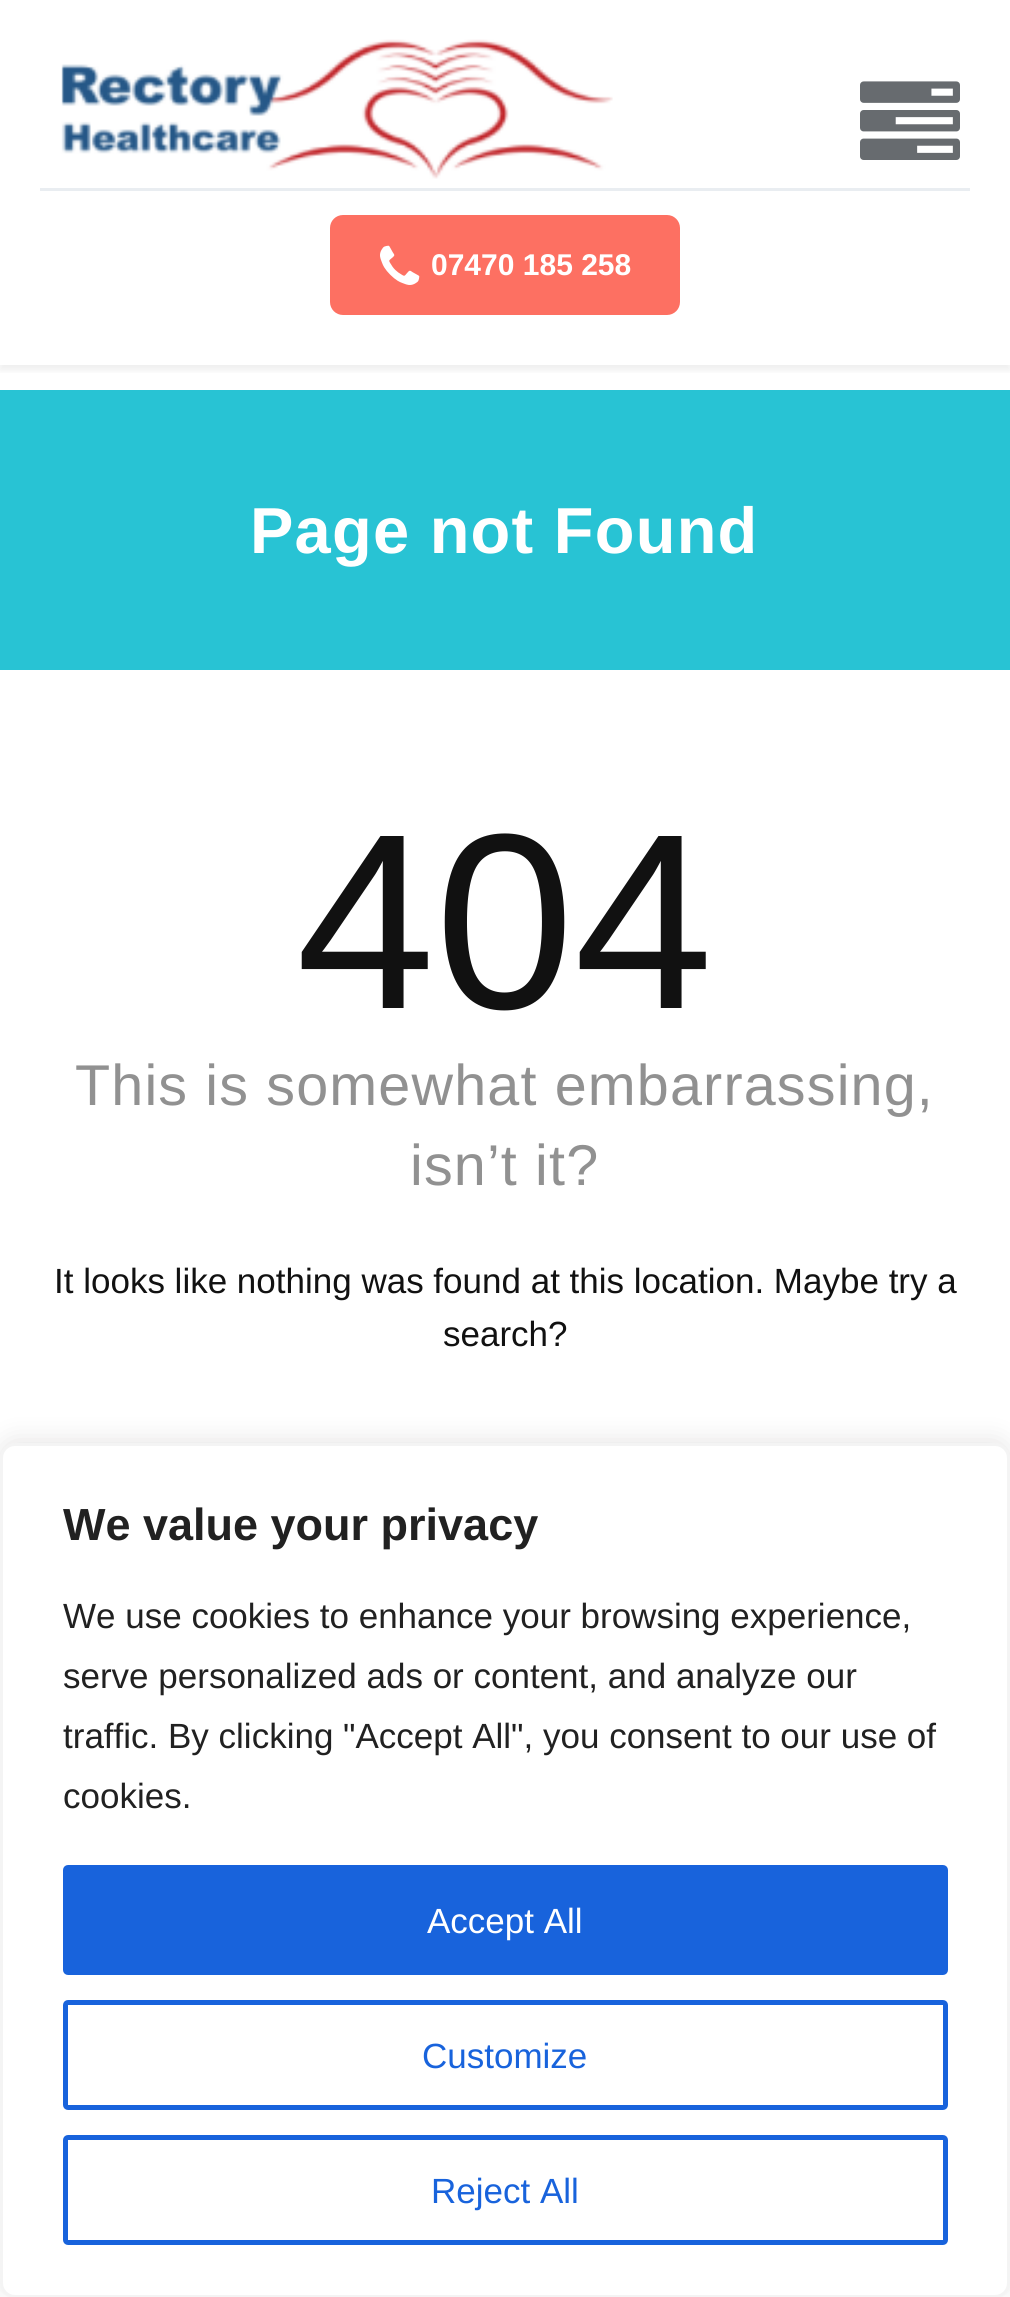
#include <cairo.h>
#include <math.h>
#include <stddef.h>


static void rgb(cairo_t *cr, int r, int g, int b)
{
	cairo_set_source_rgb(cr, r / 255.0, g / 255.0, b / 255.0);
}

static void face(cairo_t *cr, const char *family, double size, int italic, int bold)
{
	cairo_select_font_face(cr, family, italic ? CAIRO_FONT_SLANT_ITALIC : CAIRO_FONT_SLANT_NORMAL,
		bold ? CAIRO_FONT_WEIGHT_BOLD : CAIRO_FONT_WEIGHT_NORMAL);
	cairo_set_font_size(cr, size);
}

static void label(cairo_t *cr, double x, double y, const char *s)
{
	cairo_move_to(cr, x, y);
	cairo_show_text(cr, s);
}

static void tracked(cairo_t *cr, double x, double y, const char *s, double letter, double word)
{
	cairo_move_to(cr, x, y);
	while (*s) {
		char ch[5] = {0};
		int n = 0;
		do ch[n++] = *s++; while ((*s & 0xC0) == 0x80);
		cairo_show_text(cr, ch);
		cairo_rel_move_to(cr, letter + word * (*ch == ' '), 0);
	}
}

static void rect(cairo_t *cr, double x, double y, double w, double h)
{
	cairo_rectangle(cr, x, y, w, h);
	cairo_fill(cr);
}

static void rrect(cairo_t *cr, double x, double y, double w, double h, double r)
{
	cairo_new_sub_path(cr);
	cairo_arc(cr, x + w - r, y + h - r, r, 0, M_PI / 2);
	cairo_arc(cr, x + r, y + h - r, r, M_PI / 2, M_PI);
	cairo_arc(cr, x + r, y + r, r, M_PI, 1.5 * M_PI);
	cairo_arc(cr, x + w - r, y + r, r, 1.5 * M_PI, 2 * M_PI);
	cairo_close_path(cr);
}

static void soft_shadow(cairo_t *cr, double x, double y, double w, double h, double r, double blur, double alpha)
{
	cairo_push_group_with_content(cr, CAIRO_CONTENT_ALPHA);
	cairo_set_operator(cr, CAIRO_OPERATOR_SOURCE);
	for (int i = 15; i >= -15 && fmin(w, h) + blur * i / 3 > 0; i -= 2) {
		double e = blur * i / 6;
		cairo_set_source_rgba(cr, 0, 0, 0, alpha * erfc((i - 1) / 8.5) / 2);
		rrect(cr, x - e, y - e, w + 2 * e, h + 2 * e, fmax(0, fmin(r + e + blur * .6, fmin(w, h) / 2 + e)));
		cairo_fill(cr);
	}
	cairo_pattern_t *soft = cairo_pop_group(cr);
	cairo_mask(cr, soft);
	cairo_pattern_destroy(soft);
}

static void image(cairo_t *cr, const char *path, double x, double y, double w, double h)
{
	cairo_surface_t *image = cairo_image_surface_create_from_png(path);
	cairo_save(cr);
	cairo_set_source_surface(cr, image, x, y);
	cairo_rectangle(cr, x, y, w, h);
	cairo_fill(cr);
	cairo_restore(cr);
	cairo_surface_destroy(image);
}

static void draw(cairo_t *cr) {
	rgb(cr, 255, 255, 255);
	cairo_paint(cr);
	cairo_save(cr);
	cairo_rectangle(cr, 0, 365, 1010, 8);
	cairo_clip(cr);
	rgb(cr, 31, 31, 31);
	soft_shadow(cr, 0, 30, 1010, 340, 0, 4, 0.08);
	cairo_restore(cr);
	image(cr, "image0.png", 860, 81, 100, 79);
	image(cr, "image1.png", 61, 39, 552, 140);
	rgb(cr, 233, 237, 241);
	rect(cr, 40, 188, 930, 3);
	rgb(cr, 253, 112, 98);
	rrect(cr, 330, 215, 350, 100, 13);
	cairo_fill(cr);
	image(cr, "image2.png", 380, 245, 40, 40);
	face(cr, "Liberation Sans", 30, 0, 1);
	rgb(cr, 255, 255, 255);
	label(cr, 431, 275, "07470 185 258");
	rgb(cr, 40, 195, 212);
	rect(cr, 0, 390, 1010, 280);
	face(cr, "Liberation Sans", 65, 0, 1);
	rgb(cr, 255, 255, 255);
	tracked(cr, 250, 553, "Page not Found", 1.25, 0);
	face(cr, "Liberation Sans", 250, 0, 0);
	rgb(cr, 17, 17, 17);
	label(cr, 296, 1008, "404");
	face(cr, "Liberation Sans", 57.5, 0, 0);
	rgb(cr, 145, 145, 145);
	tracked(cr, 75, 1105, "This is somewhat embarrassing,", 1.15, 0);
	tracked(cr, 410, 1185, "isn’t it?", 1.15, 0);
	face(cr, "Liberation Sans", 35, 0, 0);
	rgb(cr, 17, 17, 17);
	label(cr, 54, 1293, "It looks like nothing was found at this location. Maybe try a");
	label(cr, 443, 1346, "search?");
	rgb(cr, 172, 171, 171);
	soft_shadow(cr, 0, 1440, 1010, 855, 15, 12.5, 0.3);
	rgb(cr, 255, 255, 255);
	rrect(cr, 1.5, 1444.5, 1007, 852, 13.5);
	cairo_fill_preserve(cr);
	rgb(cr, 244, 244, 244);
	cairo_set_line_width(cr, 3);
	cairo_stroke(cr);
	face(cr, "Liberation Sans", 45, 0, 1);
	rgb(cr, 33, 33, 33);
	label(cr, 63, 1540, "We value your privacy");
	face(cr, "Liberation Sans", 35, 0, 0);
	label(cr, 63, 1628, "We use cookies to enhance your browsing experience,");
	label(cr, 63, 1688, "serve personalized ads or content, and analyze our");
	label(cr, 63, 1748, "traffic. By clicking \"Accept All\", you consent to our use of");
	label(cr, 63, 1808, "cookies.");
	rgb(cr, 24, 99, 220);
	rrect(cr, 65.5, 1867.5, 880, 105, 2.5);
	cairo_fill_preserve(cr);
	cairo_set_line_width(cr, 5);
	cairo_stroke(cr);
	rgb(cr, 255, 255, 255);
	label(cr, 427, 1933, "Accept All");
	rrect(cr, 65.5, 2002.5, 880, 105, 2.5);
	rgb(cr, 24, 99, 220);
	cairo_stroke(cr);
	label(cr, 422, 2068, "Customize");
	rrect(cr, 65.5, 2137.5, 880, 105, 2.5);
	cairo_stroke(cr);
	label(cr, 431, 2203, "Reject All");
}

int main(void) {
	cairo_surface_t *surface = cairo_image_surface_create(CAIRO_FORMAT_RGB24, 1010, 2297);
	cairo_t *cr = cairo_create(surface);
	cairo_font_options_t *options = cairo_font_options_create();
	cairo_font_options_set_hint_metrics(options, CAIRO_HINT_METRICS_OFF);
	cairo_font_options_set_hint_style(options, CAIRO_HINT_STYLE_NONE);
	cairo_set_font_options(cr, options);
	cairo_set_miter_limit(cr, 4);
	draw(cr);
	cairo_surface_write_to_png(surface, "render.png");
	cairo_font_options_destroy(options);
	cairo_destroy(cr);
	cairo_surface_destroy(surface);
	return 0;
}
